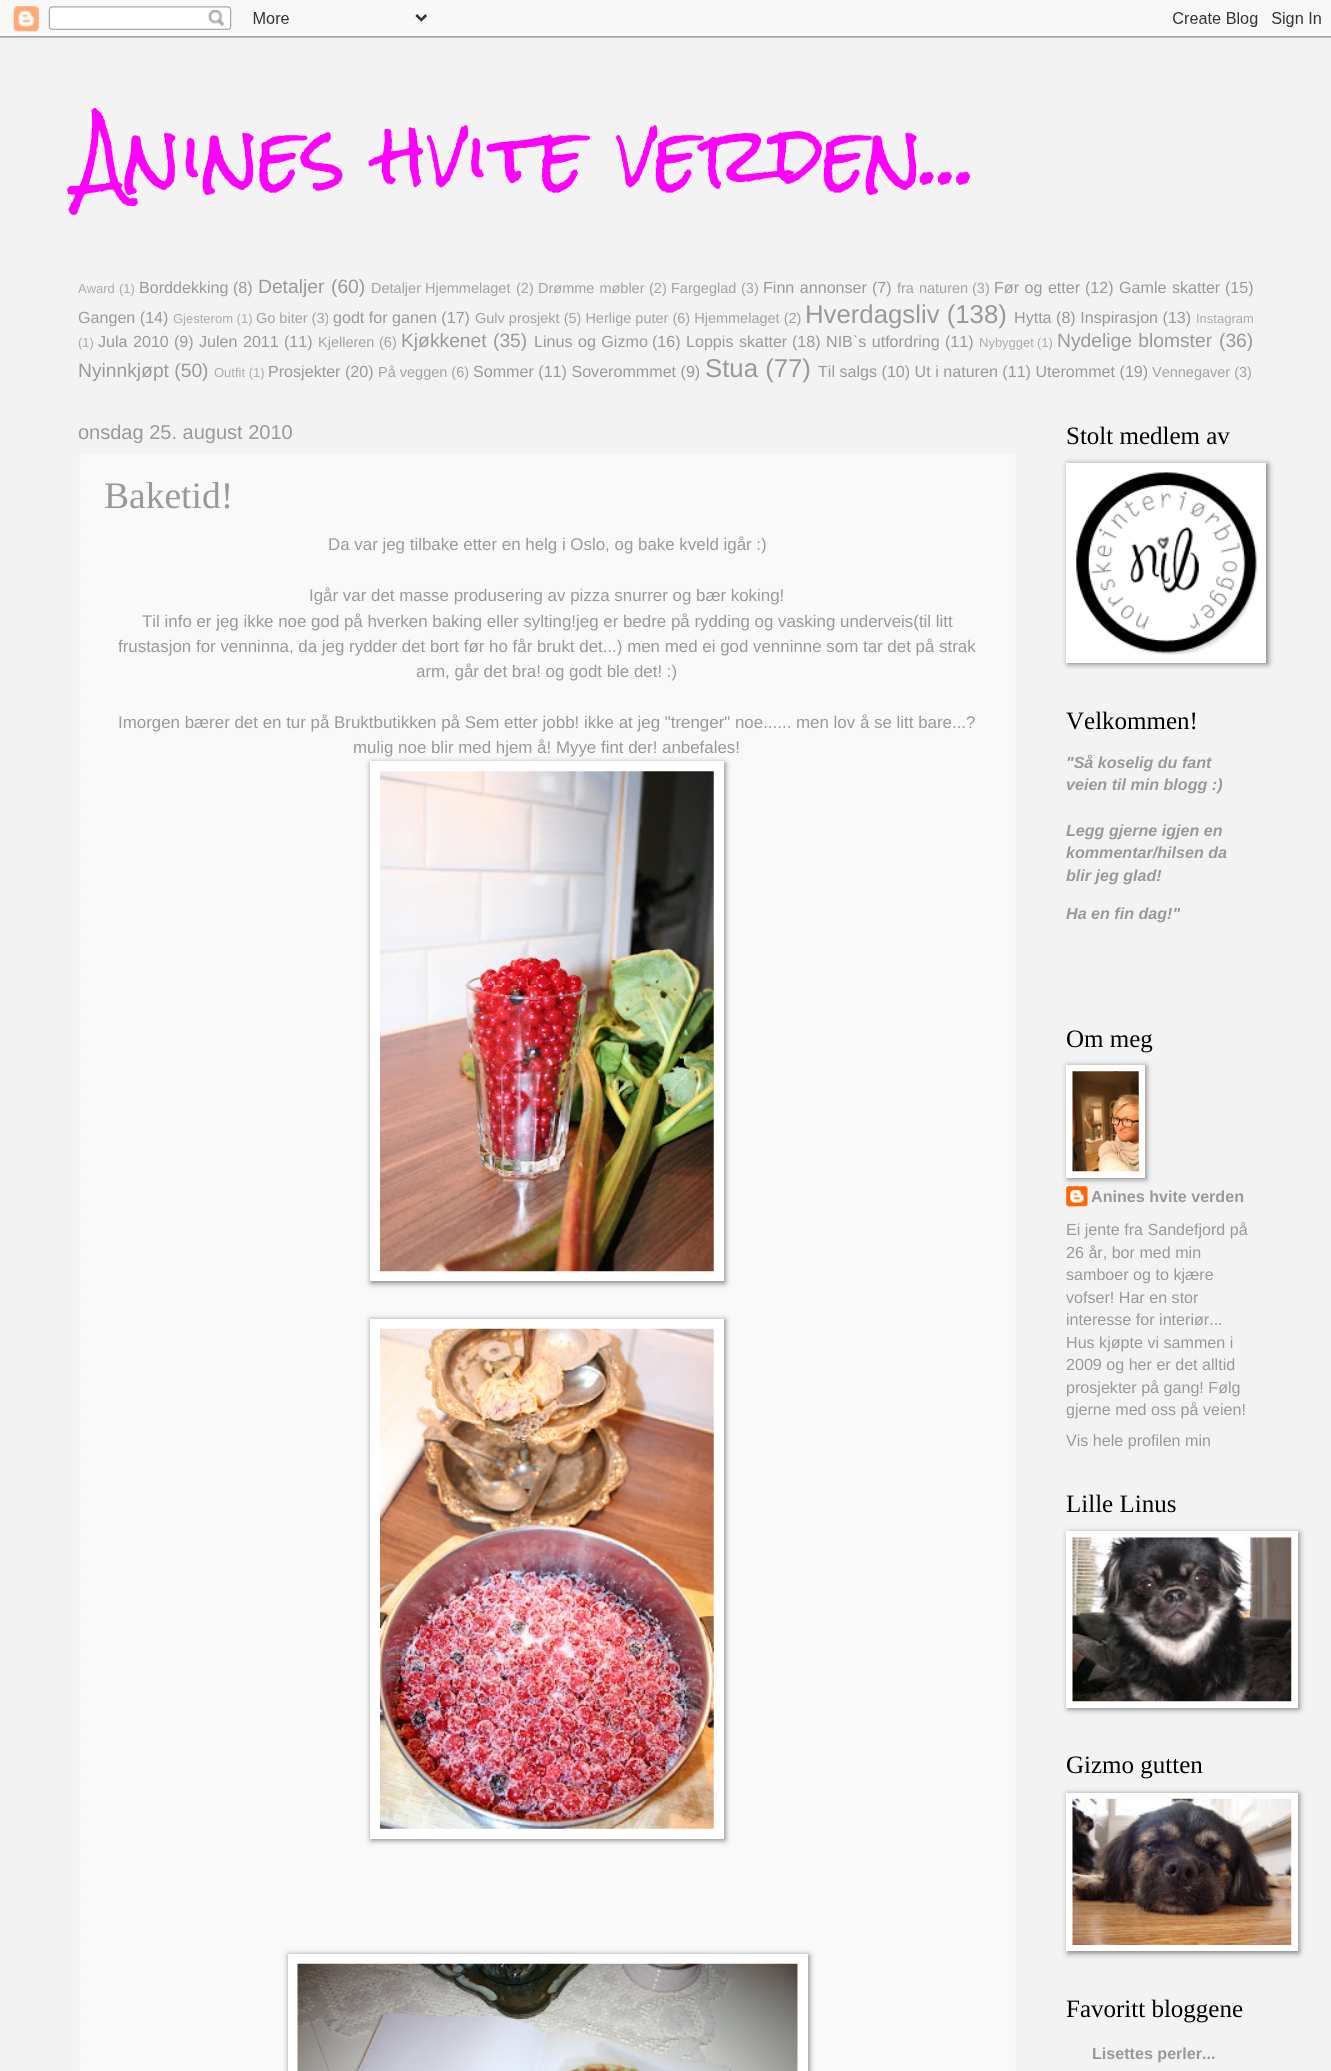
#include <cairo.h>
#include <math.h>
#include <stddef.h>


static void rgb(cairo_t *cr, int r, int g, int b)
{
	cairo_set_source_rgb(cr, r / 255.0, g / 255.0, b / 255.0);
}

static void face(cairo_t *cr, const char *family, double size, int italic, int bold)
{
	cairo_select_font_face(cr, family, italic ? CAIRO_FONT_SLANT_ITALIC : CAIRO_FONT_SLANT_NORMAL,
		bold ? CAIRO_FONT_WEIGHT_BOLD : CAIRO_FONT_WEIGHT_NORMAL);
	cairo_set_font_size(cr, size);
}

static void label(cairo_t *cr, double x, double y, const char *s)
{
	cairo_move_to(cr, x, y);
	cairo_show_text(cr, s);
}

static void tracked(cairo_t *cr, double x, double y, const char *s, double letter, double word)
{
	cairo_move_to(cr, x, y);
	while (*s) {
		char ch[5] = {0};
		int n = 0;
		do ch[n++] = *s++; while ((*s & 0xC0) == 0x80);
		cairo_show_text(cr, ch);
		cairo_rel_move_to(cr, letter + word * (*ch == ' '), 0);
	}
}

static void rect(cairo_t *cr, double x, double y, double w, double h)
{
	cairo_rectangle(cr, x, y, w, h);
	cairo_fill(cr);
}

static void rrect(cairo_t *cr, double x, double y, double w, double h, double r)
{
	cairo_new_sub_path(cr);
	cairo_arc(cr, x + w - r, y + h - r, r, 0, M_PI / 2);
	cairo_arc(cr, x + r, y + h - r, r, M_PI / 2, M_PI);
	cairo_arc(cr, x + r, y + r, r, M_PI, 1.5 * M_PI);
	cairo_arc(cr, x + w - r, y + r, r, 1.5 * M_PI, 2 * M_PI);
	cairo_close_path(cr);
}

static void soft_shadow(cairo_t *cr, double x, double y, double w, double h, double r, double blur, double alpha)
{
	cairo_push_group_with_content(cr, CAIRO_CONTENT_ALPHA);
	cairo_set_operator(cr, CAIRO_OPERATOR_SOURCE);
	for (int i = 15; i >= -15 && fmin(w, h) + blur * i / 3 > 0; i -= 2) {
		double e = blur * i / 6;
		cairo_set_source_rgba(cr, 0, 0, 0, alpha * erfc((i - 1) / 8.5) / 2);
		rrect(cr, x - e, y - e, w + 2 * e, h + 2 * e, fmax(0, fmin(r + e + blur * .6, fmin(w, h) / 2 + e)));
		cairo_fill(cr);
	}
	cairo_pattern_t *soft = cairo_pop_group(cr);
	cairo_mask(cr, soft);
	cairo_pattern_destroy(soft);
}

static void image(cairo_t *cr, const char *path, double x, double y, double w, double h)
{
	cairo_surface_t *image = cairo_image_surface_create_from_png(path);
	cairo_save(cr);
	cairo_set_source_surface(cr, image, x, y);
	cairo_rectangle(cr, x, y, w, h);
	cairo_fill(cr);
	cairo_restore(cr);
	cairo_surface_destroy(image);
}

static void draw(cairo_t *cr) {
	rgb(cr, 243, 243, 243);
	cairo_paint(cr);
	image(cr, "image0.png", 0, 0, 1331, 38);
	face(cr, "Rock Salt", 75, 0, 0);
	rgb(cr, 255, 0, 255);
	label(cr, 78, 185, "Anines hvite verden...");
	face(cr, "Liberation Sans", 13, 0, 0);
	rgb(cr, 171, 171, 171);
	label(cr, 78, 293, "Award");
	label(cr, 119, 293, "(1)");
	face(cr, "Liberation Sans", 16.1, 0, 0);
	rgb(cr, 153, 153, 153);
	label(cr, 139, 293, "Borddekking");
	label(cr, 233, 293, "(8)");
	face(cr, "Liberation Sans", 19.25, 0, 0);
	label(cr, 258, 293, "Detaljer");
	label(cr, 331, 293, "(60)");
	face(cr, "Liberation Sans", 14.5, 0, 0);
	rgb(cr, 162, 162, 162);
	label(cr, 371, 293, "Detaljer Hjemmelaget");
	label(cr, 516, 293, "(2)");
	tracked(cr, 538, 293, "Drømme møbler", 0, 1);
	label(cr, 649, 293, "(2)");
	label(cr, 671, 293, "Fargeglad");
	label(cr, 741, 293, "(3)");
	face(cr, "Liberation Sans", 16.1, 0, 0);
	rgb(cr, 153, 153, 153);
	tracked(cr, 763, 293, "Finn annonser", 0, 1);
	label(cr, 872, 293, "(7)");
	face(cr, "Liberation Sans", 14.5, 0, 0);
	rgb(cr, 162, 162, 162);
	tracked(cr, 897, 293, "fra naturen", 0, 1);
	label(cr, 972, 293, "(3)");
	face(cr, "Liberation Sans", 16.1, 0, 0);
	rgb(cr, 153, 153, 153);
	tracked(cr, 994, 293, "Før og etter", 0, 1);
	label(cr, 1085, 293, "(12)");
	tracked(cr, 1119, 293, "Gamle skatter", 0, 1);
	label(cr, 1225, 293, "(15)");
	label(cr, 78, 323, "Gangen (14)");
	face(cr, "Liberation Sans", 13, 0, 0);
	rgb(cr, 171, 171, 171);
	label(cr, 173, 323, "Gjesterom (1)");
	face(cr, "Liberation Sans", 14.5, 0, 0);
	rgb(cr, 162, 162, 162);
	label(cr, 256, 323, "Go biter (3)");
	face(cr, "Liberation Sans", 16.1, 0, 0);
	rgb(cr, 153, 153, 153);
	label(cr, 333, 323, "godt for ganen (17)");
	face(cr, "Liberation Sans", 14.5, 0, 0);
	rgb(cr, 162, 162, 162);
	label(cr, 475, 323, "Gulv prosjekt (5) Herlige puter (6) Hjemmelaget (2)");
	face(cr, "Liberation Sans", 25.75, 0, 0);
	rgb(cr, 153, 153, 153);
	label(cr, 805, 323, "Hverdagsliv (138)");
	face(cr, "Liberation Sans", 16.1, 0, 0);
	label(cr, 1014, 323, "Hytta (8) Inspirasjon (13)");
	face(cr, "Liberation Sans", 13, 0, 0);
	rgb(cr, 171, 171, 171);
	label(cr, 1196, 323, "Instagram");
	label(cr, 78, 347, "(1)");
	face(cr, "Liberation Sans", 16.1, 0, 0);
	rgb(cr, 153, 153, 153);
	tracked(cr, 98, 347, "Jula 2010", 0, 1);
	label(cr, 174, 347, "(9)");
	tracked(cr, 199, 347, "Julen 2011", 0, 1);
	label(cr, 284, 347, "(11)");
	face(cr, "Liberation Sans", 14.5, 0, 0);
	rgb(cr, 162, 162, 162);
	label(cr, 318, 347, "Kjelleren");
	label(cr, 379, 347, "(6)");
	face(cr, "Liberation Sans", 19.25, 0, 0);
	rgb(cr, 153, 153, 153);
	label(cr, 401, 347, "Kjøkkenet");
	label(cr, 493, 347, "(35)");
	face(cr, "Liberation Sans", 16.1, 0, 0);
	tracked(cr, 534, 347, "Linus og Gizmo", 0, 1);
	label(cr, 652, 347, "(16)");
	tracked(cr, 686, 347, "Loppis skatter", 0, 1);
	label(cr, 792, 347, "(18)");
	tracked(cr, 826, 347, "NIB`s utfordring", 0, 1);
	label(cr, 945, 347, "(11)");
	face(cr, "Liberation Sans", 13, 0, 0);
	rgb(cr, 171, 171, 171);
	label(cr, 979, 347, "Nybygget");
	label(cr, 1037, 347, "(1)");
	face(cr, "Liberation Sans", 19.25, 0, 0);
	rgb(cr, 153, 153, 153);
	tracked(cr, 1057, 347, "Nydelige blomster", 0, 1);
	label(cr, 1219, 347, "(36)");
	label(cr, 78, 377, "Nyinnkjøpt (50)");
	face(cr, "Liberation Sans", 13, 0, 0);
	rgb(cr, 171, 171, 171);
	label(cr, 214, 377, "Outfit (1)");
	face(cr, "Liberation Sans", 16.1, 0, 0);
	rgb(cr, 153, 153, 153);
	label(cr, 268, 377, "Prosjekter (20)");
	face(cr, "Liberation Sans", 14.5, 0, 0);
	rgb(cr, 162, 162, 162);
	label(cr, 378, 377, "På veggen (6)");
	face(cr, "Liberation Sans", 16.1, 0, 0);
	rgb(cr, 153, 153, 153);
	label(cr, 473, 377, "Sommer (11) Soverommmet (9)");
	face(cr, "Liberation Sans", 25.75, 0, 0);
	label(cr, 705, 377, "Stua (77)");
	face(cr, "Liberation Sans", 16.1, 0, 0);
	label(cr, 818, 377, "Til salgs (10) Ut i naturen (11) Uterommet (19)");
	face(cr, "Liberation Sans", 14.5, 0, 0);
	rgb(cr, 162, 162, 162);
	label(cr, 1152, 377, "Vennegaver (3)");
	face(cr, "Liberation Sans", 20, 0, 0);
	rgb(cr, 153, 153, 153);
	label(cr, 78, 439, "onsdag 25. august 2010");
	rgb(cr, 249, 249, 249);
	rect(cr, 79, 454, 937, 1617);
	cairo_new_path(cr);
	cairo_move_to(cr, 79, 454.5);
	cairo_line_to(cr, 1016, 454.5);
	rgb(cr, 243, 243, 243);
	cairo_set_line_width(cr, 1.2);
	cairo_set_dash(cr, (double[]){1.25, 1.25}, 2, 0);
	cairo_stroke(cr);
	cairo_new_path(cr);
	cairo_move_to(cr, 1015.5, 454);
	cairo_line_to(cr, 1015.5, 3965);
	cairo_stroke(cr);
	cairo_new_path(cr);
	cairo_move_to(cr, 79.5, 454);
	cairo_line_to(cr, 79.5, 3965);
	cairo_stroke(cr);
	face(cr, "Liberation Serif", 37.5, 0, 0);
	rgb(cr, 153, 153, 153);
	label(cr, 104, 508, "Baketid!");
	face(cr, "Liberation Sans", 16.9, 0, 0);
	label(cr, 328, 550, "Da var jeg tilbake etter en helg i Oslo, og bake kveld igår :)");
	label(cr, 309, 601, "Igår var det masse produsering av pizza snurrer og bær koking!");
	label(cr, 142, 627, "Til info er jeg ikke noe god på hverken baking eller sylting!jeg er bedre på rydding og vasking underveis(til litt");
	label(cr, 118, 652, "frustasjon for venninna, da jeg rydder det bort før ho får brukt det...) men med ei god venninne som tar det på strak");
	label(cr, 416, 677, "arm, går det bra! og godt ble det! :)");
	label(cr, 118, 728, "Imorgen bærer det en tur på Bruktbutikken på Sem etter jobb! ikke at jeg \"trenger\" noe...... men lov å se litt bare...?");
	rgb(cr, 0, 0, 0);
	soft_shadow(cr, 371, 763, 354, 520, 0, 3, 0.5);
	rgb(cr, 153, 153, 153);
	label(cr, 353, 753, "mulig noe blir med hjem å! Myye fint der! anbefales!");
	rgb(cr, 255, 255, 255);
	rect(cr, 370, 761, 354, 520);
	image(cr, "image1.png", 380, 771, 334, 501);
	rgb(cr, 0, 0, 0);
	soft_shadow(cr, 371, 1320, 354, 520, 0, 3, 0.5);
	rgb(cr, 255, 255, 255);
	rect(cr, 370, 1319, 354, 520);
	image(cr, "image2.png", 380, 1328, 334, 501);
	rgb(cr, 0, 0, 0);
	soft_shadow(cr, 289, 1955, 520, 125, 0, 3, 0.5);
	rgb(cr, 255, 255, 255);
	rect(cr, 288, 1954, 520, 117);
	image(cr, "image3.png", 297, 1963, 501, 108);
	face(cr, "Liberation Serif", 25, 0, 0);
	rgb(cr, 0, 0, 0);
	label(cr, 1066, 444, "Stolt medlem av");
	rgb(cr, 0, 0, 0);
	soft_shadow(cr, 1068, 464, 200, 200, 0, 3, 0.5);
	rgb(cr, 255, 255, 255);
	rect(cr, 1066, 463, 200, 200);
	image(cr, "image4.png", 1076, 472, 182, 183);
	rgb(cr, 0, 0, 0);
	label(cr, 1066, 729, "Velkommen!");
	face(cr, "Liberation Sans", 16.1, 1, 1);
	rgb(cr, 153, 153, 153);
	label(cr, 1066, 768, "\"Så koselig du fant");
	label(cr, 1066, 790, "veien til min blogg :)");
	label(cr, 1066, 836, "Legg gjerne igjen en");
	label(cr, 1066, 858, "kommentar/hilsen da");
	label(cr, 1066, 881, "blir jeg glad!");
	label(cr, 1066, 919, "Ha en fin dag!\"");
	face(cr, "Liberation Serif", 25, 0, 0);
	rgb(cr, 0, 0, 0);
	label(cr, 1066, 1047, "Om meg");
	image(cr, "image6.png", 1066, 1186, 22, 21);
	rgb(cr, 0, 0, 0);
	soft_shadow(cr, 1068, 1066, 78, 113, 0, 3, 0.5);
	rgb(cr, 255, 255, 255);
	rect(cr, 1066, 1065, 79, 113);
	image(cr, "image5.png", 1072, 1071, 67, 101);
	face(cr, "Liberation Sans", 16.1, 0, 1);
	rgb(cr, 153, 153, 153);
	label(cr, 1091, 1202, "Anines hvite verden");
	face(cr, "Liberation Sans", 16.1, 0, 0);
	label(cr, 1066, 1235, "Ei jente fra Sandefjord på");
	label(cr, 1066, 1258, "26 år, bor med min");
	label(cr, 1066, 1280, "samboer og to kjære");
	label(cr, 1066, 1303, "vofser! Har en stor");
	label(cr, 1066, 1325, "interesse for interiør...");
	label(cr, 1066, 1348, "Hus kjøpte vi sammen i");
	label(cr, 1066, 1370, "2009 og her er det alltid");
	label(cr, 1066, 1393, "prosjekter på gang! Følg");
	label(cr, 1066, 1415, "gjerne med oss på veien!");
	label(cr, 1066, 1446, "Vis hele profilen min");
	face(cr, "Liberation Serif", 25, 0, 0);
	rgb(cr, 0, 0, 0);
	label(cr, 1066, 1512, "Lille Linus");
	rgb(cr, 0, 0, 0);
	soft_shadow(cr, 1068, 1533, 231, 176, 0, 3, 0.5);
	rgb(cr, 255, 255, 255);
	rect(cr, 1066, 1531, 232, 177);
	image(cr, "image7.png", 1072, 1537, 220, 165);
	rgb(cr, 0, 0, 0);
	label(cr, 1066, 1773, "Gizmo gutten");
	rgb(cr, 0, 0, 0);
	soft_shadow(cr, 1068, 1794, 231, 159, 0, 3, 0.5);
	rgb(cr, 255, 255, 255);
	rect(cr, 1066, 1793, 232, 158);
	image(cr, "image8.png", 1072, 1798, 220, 147);
	rgb(cr, 0, 0, 0);
	label(cr, 1066, 2017, "Favoritt bloggene");
	face(cr, "Liberation Sans", 16.1, 0, 1);
	rgb(cr, 153, 153, 153);
	label(cr, 1092, 2059, "Lisettes perler...");
}

int main(void) {
	cairo_surface_t *surface = cairo_image_surface_create(CAIRO_FORMAT_RGB24, 1331, 2071);
	cairo_t *cr = cairo_create(surface);
	cairo_font_options_t *options = cairo_font_options_create();
	cairo_font_options_set_hint_metrics(options, CAIRO_HINT_METRICS_OFF);
	cairo_font_options_set_hint_style(options, CAIRO_HINT_STYLE_NONE);
	cairo_set_font_options(cr, options);
	cairo_set_miter_limit(cr, 4);
	draw(cr);
	cairo_surface_write_to_png(surface, "render.png");
	cairo_font_options_destroy(options);
	cairo_destroy(cr);
	cairo_surface_destroy(surface);
	return 0;
}
